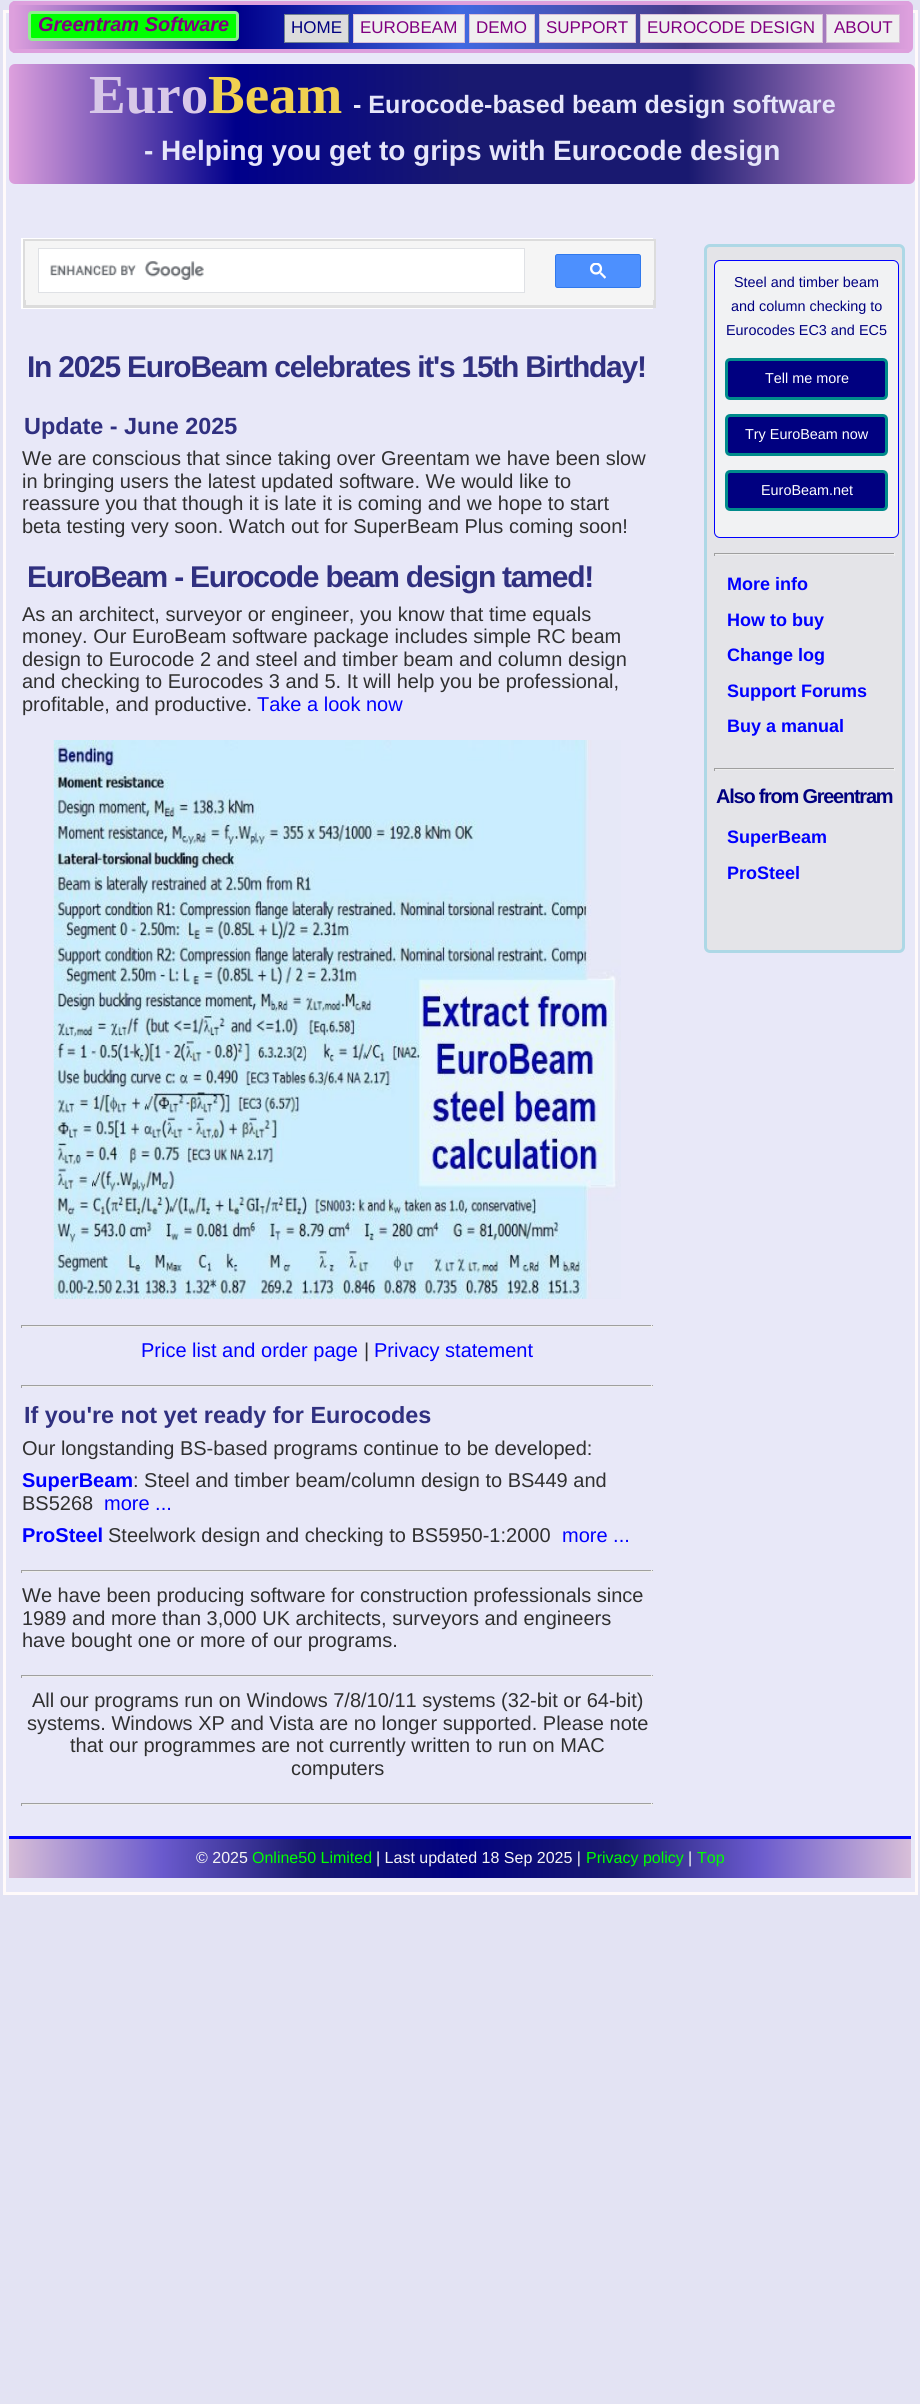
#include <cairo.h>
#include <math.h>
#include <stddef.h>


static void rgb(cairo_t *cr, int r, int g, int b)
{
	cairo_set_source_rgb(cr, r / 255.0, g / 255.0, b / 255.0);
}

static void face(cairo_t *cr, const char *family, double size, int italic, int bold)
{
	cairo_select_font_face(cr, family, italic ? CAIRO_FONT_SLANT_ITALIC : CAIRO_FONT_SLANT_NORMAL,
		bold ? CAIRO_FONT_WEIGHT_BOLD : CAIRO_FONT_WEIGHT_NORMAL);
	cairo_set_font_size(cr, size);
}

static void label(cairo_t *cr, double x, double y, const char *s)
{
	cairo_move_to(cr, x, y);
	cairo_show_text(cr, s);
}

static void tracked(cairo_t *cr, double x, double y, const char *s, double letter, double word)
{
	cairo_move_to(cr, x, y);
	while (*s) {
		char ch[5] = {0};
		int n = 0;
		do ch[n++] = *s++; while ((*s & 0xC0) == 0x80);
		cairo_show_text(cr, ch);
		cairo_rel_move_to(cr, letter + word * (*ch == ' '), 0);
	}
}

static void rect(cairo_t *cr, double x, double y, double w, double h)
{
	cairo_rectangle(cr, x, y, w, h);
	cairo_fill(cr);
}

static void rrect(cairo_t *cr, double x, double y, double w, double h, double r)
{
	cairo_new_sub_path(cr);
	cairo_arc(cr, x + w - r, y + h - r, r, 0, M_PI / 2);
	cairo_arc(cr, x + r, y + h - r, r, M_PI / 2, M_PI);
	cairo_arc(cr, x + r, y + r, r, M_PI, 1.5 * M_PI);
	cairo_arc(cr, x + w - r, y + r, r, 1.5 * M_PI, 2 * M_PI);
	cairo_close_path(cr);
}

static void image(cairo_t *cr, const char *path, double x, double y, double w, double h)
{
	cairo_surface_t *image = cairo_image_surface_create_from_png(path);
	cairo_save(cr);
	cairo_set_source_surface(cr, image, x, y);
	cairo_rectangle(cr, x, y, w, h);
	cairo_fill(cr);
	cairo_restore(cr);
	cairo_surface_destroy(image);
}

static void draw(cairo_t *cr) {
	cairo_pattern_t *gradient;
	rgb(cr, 227, 227, 243);
	cairo_paint(cr);
	rgb(cr, 232, 232, 248);
	cairo_rectangle(cr, 4.5, 11.5, 912, 1882);
	cairo_fill_preserve(cr);
	rgb(cr, 255, 250, 250);
	cairo_set_line_width(cr, 3);
	cairo_stroke(cr);
	cairo_save(cr);
	rrect(cr, 9, 1, 904, 52, 6);
	cairo_clip(cr);
	gradient = cairo_pattern_create_linear(13, 27, 909, 27);
	cairo_pattern_add_color_stop_rgba(gradient, 0, 0.867, 0.627, 0.867, 1);
	cairo_pattern_add_color_stop_rgba(gradient, 0.25, 0, 0, 0.545, 1);
	cairo_pattern_add_color_stop_rgba(gradient, 0.5, 0.255, 0.412, 0.882, 1);
	cairo_pattern_add_color_stop_rgba(gradient, 0.75, 0.282, 0.239, 0.545, 1);
	cairo_pattern_add_color_stop_rgba(gradient, 1, 0.867, 0.627, 0.867, 1);
	cairo_set_source(cr, gradient);
	cairo_pattern_destroy(gradient);
	rect(cr, 13, 1, 896, 52);
	cairo_restore(cr);
	rrect(cr, 11, 3, 900, 48, 4);
	rgb(cr, 221, 160, 221);
	cairo_set_line_width(cr, 4);
	cairo_stroke(cr);
	rgb(cr, 0, 255, 0);
	rrect(cr, 29.5, 12.5, 208, 27, 2.5);
	cairo_fill_preserve(cr);
	rgb(cr, 144, 238, 144);
	cairo_set_line_width(cr, 3);
	cairo_stroke(cr);
	face(cr, "Liberation Sans", 20, 1, 1);
	rgb(cr, 128, 0, 128);
	label(cr, 38, 31, "Greentram Software");
	rgb(cr, 220, 220, 220);
	cairo_rectangle(cr, 284.5, 14.5, 64, 28);
	cairo_fill_preserve(cr);
	rgb(cr, 112, 128, 144);
	cairo_set_line_width(cr, 1);
	cairo_stroke(cr);
	face(cr, "Liberation Sans", 17, 0, 0);
	rgb(cr, 0, 0, 128);
	label(cr, 291, 33, "HOME");
	rgb(cr, 240, 240, 240);
	cairo_rectangle(cr, 353.5, 14.5, 111, 28);
	cairo_fill_preserve(cr);
	rgb(cr, 216, 191, 216);
	cairo_stroke(cr);
	rgb(cr, 128, 0, 128);
	label(cr, 360, 33, "EUROBEAM");
	rgb(cr, 240, 240, 240);
	cairo_rectangle(cr, 469.5, 14.5, 65, 28);
	cairo_fill_preserve(cr);
	rgb(cr, 216, 191, 216);
	cairo_stroke(cr);
	rgb(cr, 128, 0, 128);
	label(cr, 476, 33, "DEMO");
	rgb(cr, 240, 240, 240);
	cairo_rectangle(cr, 539.5, 14.5, 96, 28);
	cairo_fill_preserve(cr);
	rgb(cr, 216, 191, 216);
	cairo_stroke(cr);
	rgb(cr, 128, 0, 128);
	label(cr, 546, 33, "SUPPORT");
	rgb(cr, 240, 240, 240);
	cairo_rectangle(cr, 640.5, 14.5, 182, 28);
	cairo_fill_preserve(cr);
	rgb(cr, 216, 191, 216);
	cairo_stroke(cr);
	rgb(cr, 128, 0, 128);
	label(cr, 647, 33, "EUROCODE DESIGN");
	rgb(cr, 240, 240, 240);
	cairo_rectangle(cr, 826.5, 14.5, 73, 28);
	cairo_fill_preserve(cr);
	rgb(cr, 216, 191, 216);
	cairo_stroke(cr);
	rgb(cr, 128, 0, 128);
	label(cr, 834, 33, "ABOUT");
	gradient = cairo_pattern_create_linear(9, 124, 915, 124);
	cairo_pattern_add_color_stop_rgba(gradient, 0, 0.867, 0.627, 0.867, 1);
	cairo_pattern_add_color_stop_rgba(gradient, 0.25, 0, 0, 0.545, 1);
	cairo_pattern_add_color_stop_rgba(gradient, 0.5, 0.098, 0.098, 0.439, 1);
	cairo_pattern_add_color_stop_rgba(gradient, 0.75, 0.098, 0.098, 0.439, 1);
	cairo_pattern_add_color_stop_rgba(gradient, 1, 0.867, 0.627, 0.867, 1);
	cairo_set_source(cr, gradient);
	cairo_pattern_destroy(gradient);
	rrect(cr, 9, 64, 906, 120, 6);
	cairo_fill(cr);
	face(cr, "Liberation Serif", 55, 0, 1);
	rgb(cr, 216, 200, 232);
	label(cr, 89, 113, "Euro");
	rgb(cr, 240, 208, 80);
	label(cr, 208, 113, "Beam");
	face(cr, "Liberation Sans", 25.1, 0, 1);
	rgb(cr, 230, 230, 250);
	label(cr, 353, 113, "- Eurocode-based beam design software");
	face(cr, "Liberation Sans", 28, 0, 1);
	label(cr, 144, 160, "- Helping you get to grips with Eurocode design");
	rgb(cr, 255, 255, 255);
	rect(cr, 21, 238, 632, 71);
	rgb(cr, 245, 245, 245);
	rect(cr, 26, 300, 627, 5);
	cairo_rectangle(cr, 24.5, 240.5, 630, 66);
	rgb(cr, 220, 220, 220);
	cairo_set_line_width(cr, 3);
	cairo_stroke(cr);
	rgb(cr, 245, 245, 245);
	rect(cr, 25, 241, 629, 59);
	rgb(cr, 255, 255, 255);
	cairo_rectangle(cr, 38.5, 248.5, 486, 44);
	cairo_fill_preserve(cr);
	rgb(cr, 223, 225, 229);
	cairo_set_line_width(cr, 1);
	cairo_stroke(cr);
	image(cr, "image0.png", 50, 261, 154, 19);
	rgb(cr, 77, 144, 254);
	rrect(cr, 555.5, 254.5, 85, 33, 2);
	cairo_fill_preserve(cr);
	rgb(cr, 48, 121, 237);
	cairo_stroke(cr);
	image(cr, "image1.png", 590, 263, 16, 16);
	face(cr, "Liberation Sans", 30, 0, 1);
	rgb(cr, 48, 48, 128);
	tracked(cr, 27, 377, "In 2025 EuroBeam celebrates it's 15th Birthday!", -1.25, 0);
	face(cr, "Liberation Sans", 23.4, 0, 1);
	label(cr, 24, 434, "Update - June 2025");
	face(cr, "Liberation Sans", 20, 0, 0);
	rgb(cr, 48, 48, 48);
	label(cr, 22, 465, "We are conscious that since taking over Greentam we have been slow");
	label(cr, 22, 488, "in bringing users the latest updated software. We would like to");
	label(cr, 22, 510, "reassure you that though it is late it is coming and we hope to start");
	label(cr, 22, 533, "beta testing very soon. Watch out for SuperBeam Plus coming soon!");
	face(cr, "Liberation Sans", 30, 0, 1);
	rgb(cr, 48, 48, 128);
	tracked(cr, 27, 587, "EuroBeam - Eurocode beam design tamed!", -1.25, 0);
	face(cr, "Liberation Sans", 20, 0, 0);
	rgb(cr, 48, 48, 48);
	label(cr, 22, 621, "As an architect, surveyor or engineer, you know that time equals");
	label(cr, 22, 643, "money. Our EuroBeam software package includes simple RC beam");
	label(cr, 22, 666, "design to Eurocode 2 and steel and timber beam and column design");
	label(cr, 22, 688, "and checking to Eurocodes 3 and 5. It will help you be professional,");
	label(cr, 22, 711, "profitable, and productive.");
	rgb(cr, 0, 0, 255);
	label(cr, 257, 711, "Take a look now");
	image(cr, "image2.png", 53, 740, 568, 559);
	rgb(cr, 159, 159, 159);
	rect(cr, 21, 1325, 632, 1);
	rgb(cr, 238, 238, 238);
	rect(cr, 651, 1325, 1, 3);
	rect(cr, 21, 1326, 632, 1);
	rgb(cr, 159, 159, 159);
	rect(cr, 21, 1325, 1, 3);
	rgb(cr, 0, 0, 255);
	label(cr, 141, 1357, "Price list and order page");
	rgb(cr, 48, 48, 48);
	label(cr, 364, 1357, "|");
	rgb(cr, 0, 0, 255);
	label(cr, 374, 1357, "Privacy statement");
	rgb(cr, 159, 159, 159);
	rect(cr, 21, 1385, 632, 1);
	rgb(cr, 238, 238, 238);
	rect(cr, 651, 1385, 1, 3);
	rect(cr, 21, 1386, 632, 1);
	rgb(cr, 159, 159, 159);
	rect(cr, 21, 1385, 1, 3);
	face(cr, "Liberation Sans", 23.4, 0, 1);
	rgb(cr, 48, 48, 128);
	label(cr, 24, 1423, "If you're not yet ready for Eurocodes");
	face(cr, "Liberation Sans", 20, 0, 0);
	rgb(cr, 48, 48, 48);
	label(cr, 22, 1455, "Our longstanding BS-based programs continue to be developed:");
	face(cr, "Liberation Sans", 20, 0, 1);
	rgb(cr, 0, 0, 255);
	label(cr, 22, 1487, "SuperBeam");
	face(cr, "Liberation Sans", 20, 0, 0);
	rgb(cr, 48, 48, 48);
	label(cr, 133, 1487, ": Steel and timber beam/column design to BS449 and");
	label(cr, 22, 1510, "BS5268");
	rgb(cr, 0, 0, 255);
	label(cr, 104, 1510, "more ...");
	face(cr, "Liberation Sans", 20, 0, 1);
	label(cr, 22, 1542, "ProSteel");
	face(cr, "Liberation Sans", 20, 0, 0);
	rgb(cr, 48, 48, 48);
	label(cr, 108, 1542, "Steelwork design and checking to BS5950-1:2000");
	rgb(cr, 0, 0, 255);
	label(cr, 562, 1542, "more ...");
	rgb(cr, 159, 159, 159);
	rect(cr, 21, 1570, 632, 1);
	rgb(cr, 238, 238, 238);
	rect(cr, 651, 1570, 1, 3);
	rect(cr, 21, 1571, 632, 1);
	rgb(cr, 159, 159, 159);
	rect(cr, 21, 1570, 1, 3);
	rgb(cr, 48, 48, 48);
	label(cr, 22, 1602, "We have been producing software for construction professionals since");
	label(cr, 22, 1625, "1989 and more than 3,000 UK architects, surveyors and engineers");
	label(cr, 22, 1647, "have bought one or more of our programs.");
	rgb(cr, 159, 159, 159);
	rect(cr, 21, 1675, 632, 1);
	rgb(cr, 238, 238, 238);
	rect(cr, 651, 1675, 1, 3);
	rect(cr, 21, 1676, 632, 1);
	rgb(cr, 159, 159, 159);
	rect(cr, 21, 1675, 1, 3);
	rgb(cr, 48, 48, 48);
	label(cr, 32, 1707, "All our programs run on Windows 7/8/10/11 systems (32-bit or 64-bit)");
	label(cr, 27, 1730, "systems. Windows XP and Vista are no longer supported. Please note");
	label(cr, 70, 1752, "that our programmes are not currently written to run on MAC");
	label(cr, 291, 1775, "computers");
	rgb(cr, 159, 159, 159);
	rect(cr, 21, 1803, 632, 1);
	rgb(cr, 238, 238, 238);
	rect(cr, 651, 1803, 1, 3);
	rect(cr, 21, 1804, 632, 1);
	rgb(cr, 159, 159, 159);
	rect(cr, 21, 1803, 1, 3);
	rgb(cr, 228, 228, 232);
	rrect(cr, 705.5, 245.5, 198, 706, 4.5);
	cairo_fill_preserve(cr);
	rgb(cr, 173, 216, 230);
	cairo_set_line_width(cr, 3);
	cairo_stroke(cr);
	rgb(cr, 241, 242, 243);
	rrect(cr, 714.5, 260.5, 184, 277, 5.5);
	cairo_fill_preserve(cr);
	rgb(cr, 0, 0, 255);
	cairo_set_line_width(cr, 1);
	cairo_stroke(cr);
	face(cr, "Liberation Sans", 14.4, 0, 0);
	rgb(cr, 0, 0, 128);
	label(cr, 734, 287, "Steel and timber beam");
	label(cr, 731, 311, "and column checking to");
	label(cr, 726, 335, "Eurocodes EC3 and EC5");
	rrect(cr, 726.5, 359.5, 160, 39, 3.5);
	cairo_fill_preserve(cr);
	rgb(cr, 0, 139, 139);
	cairo_set_line_width(cr, 3);
	cairo_stroke(cr);
	rgb(cr, 255, 255, 255);
	label(cr, 765, 383, "Tell me more");
	rgb(cr, 0, 0, 128);
	rrect(cr, 726.5, 415.5, 160, 39, 3.5);
	cairo_fill_preserve(cr);
	rgb(cr, 0, 139, 139);
	cairo_stroke(cr);
	rgb(cr, 255, 255, 255);
	label(cr, 745, 439, "Try EuroBeam now");
	rgb(cr, 0, 0, 128);
	rrect(cr, 726.5, 471.5, 160, 38, 3.5);
	cairo_fill_preserve(cr);
	rgb(cr, 0, 139, 139);
	cairo_stroke(cr);
	rgb(cr, 255, 255, 255);
	label(cr, 761, 495, "EuroBeam.net");
	rgb(cr, 159, 159, 159);
	rect(cr, 714, 553, 181, 1);
	rgb(cr, 238, 238, 238);
	rect(cr, 894, 553, 1, 3);
	rect(cr, 714, 554, 181, 1);
	rgb(cr, 159, 159, 159);
	rect(cr, 714, 553, 1, 3);
	face(cr, "Liberation Sans", 18, 0, 1);
	rgb(cr, 0, 0, 255);
	label(cr, 727, 590, "More info");
	label(cr, 727, 626, "How to buy");
	label(cr, 727, 661, "Change log");
	label(cr, 727, 697, "Support Forums");
	label(cr, 727, 732, "Buy a manual");
	rgb(cr, 159, 159, 159);
	rect(cr, 714, 768, 181, 1);
	rgb(cr, 238, 238, 238);
	rect(cr, 894, 768, 1, 3);
	rect(cr, 714, 769, 181, 1);
	rgb(cr, 159, 159, 159);
	rect(cr, 714, 768, 1, 3);
	face(cr, "Liberation Sans", 20, 0, 1);
	rgb(cr, 0, 0, 128);
	tracked(cr, 716, 803, "Also from Greentram", -1.25, 0);
	face(cr, "Liberation Sans", 18, 0, 1);
	rgb(cr, 0, 0, 255);
	label(cr, 727, 843, "SuperBeam");
	label(cr, 727, 879, "ProSteel");
	gradient = cairo_pattern_create_linear(9, 1858, 911, 1858);
	cairo_pattern_add_color_stop_rgba(gradient, 0, 0.847, 0.749, 0.847, 1);
	cairo_pattern_add_color_stop_rgba(gradient, 0.17, 0.416, 0.353, 0.804, 1);
	cairo_pattern_add_color_stop_rgba(gradient, 0.33, 0.098, 0.098, 0.439, 1);
	cairo_pattern_add_color_stop_rgba(gradient, 0.5, 0, 0, 0.502, 1);
	cairo_pattern_add_color_stop_rgba(gradient, 0.67, 0.098, 0.098, 0.439, 1);
	cairo_pattern_add_color_stop_rgba(gradient, 0.83, 0.416, 0.353, 0.804, 1);
	cairo_pattern_add_color_stop_rgba(gradient, 1, 0.847, 0.749, 0.847, 1);
	cairo_set_source(cr, gradient);
	cairo_pattern_destroy(gradient);
	rect(cr, 9, 1839, 902, 39);
	rgb(cr, 0, 0, 255);
	rect(cr, 9, 1836, 902, 3);
	face(cr, "Liberation Sans", 16, 0, 0);
	rgb(cr, 245, 245, 245);
	label(cr, 196, 1863, "© 2025");
	rgb(cr, 0, 255, 0);
	label(cr, 252, 1863, "Online50 Limited");
	rgb(cr, 245, 245, 245);
	label(cr, 376, 1863, "| Last updated 18 Sep 2025 |");
	rgb(cr, 0, 255, 0);
	label(cr, 586, 1863, "Privacy policy");
	rgb(cr, 245, 245, 245);
	label(cr, 688, 1863, "|");
	rgb(cr, 0, 255, 0);
	label(cr, 697, 1863, "Top");
}

int main(void) {
	cairo_surface_t *surface = cairo_image_surface_create(CAIRO_FORMAT_RGB24, 920, 2404);
	cairo_t *cr = cairo_create(surface);
	cairo_font_options_t *options = cairo_font_options_create();
	cairo_font_options_set_hint_metrics(options, CAIRO_HINT_METRICS_OFF);
	cairo_font_options_set_hint_style(options, CAIRO_HINT_STYLE_NONE);
	cairo_set_font_options(cr, options);
	cairo_set_miter_limit(cr, 4);
	draw(cr);
	cairo_surface_write_to_png(surface, "render.png");
	cairo_font_options_destroy(options);
	cairo_destroy(cr);
	cairo_surface_destroy(surface);
	return 0;
}
